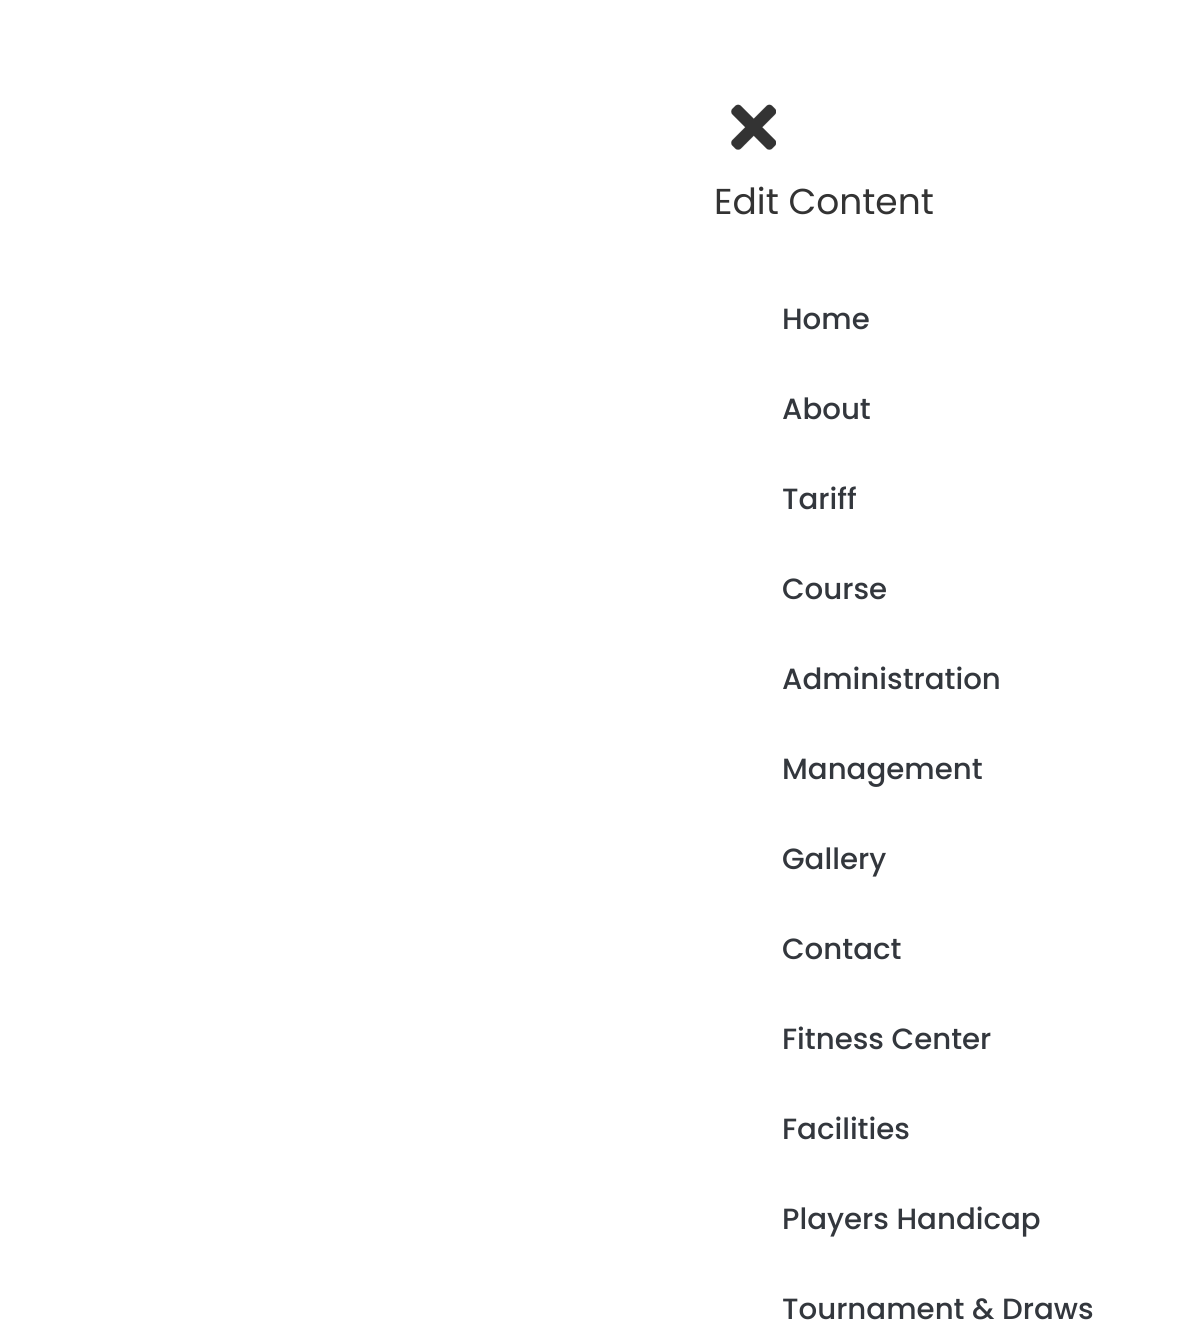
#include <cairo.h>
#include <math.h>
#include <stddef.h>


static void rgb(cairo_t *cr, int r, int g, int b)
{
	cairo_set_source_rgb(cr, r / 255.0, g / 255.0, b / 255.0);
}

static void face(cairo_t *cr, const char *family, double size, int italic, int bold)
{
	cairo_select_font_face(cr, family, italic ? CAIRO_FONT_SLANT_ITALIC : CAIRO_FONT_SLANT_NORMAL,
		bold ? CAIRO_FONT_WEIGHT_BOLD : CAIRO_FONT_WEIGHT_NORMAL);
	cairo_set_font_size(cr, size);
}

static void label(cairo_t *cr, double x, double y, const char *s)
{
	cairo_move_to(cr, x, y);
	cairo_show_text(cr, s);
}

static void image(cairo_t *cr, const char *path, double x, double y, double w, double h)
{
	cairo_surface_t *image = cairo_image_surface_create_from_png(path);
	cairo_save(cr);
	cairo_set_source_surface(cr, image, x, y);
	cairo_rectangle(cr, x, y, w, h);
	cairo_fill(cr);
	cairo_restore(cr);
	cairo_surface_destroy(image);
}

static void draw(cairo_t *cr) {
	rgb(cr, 255, 255, 255);
	cairo_paint(cr);
	image(cr, "image0.png", 731, 104, 45, 46);
	face(cr, "Poppins", 36, 0, 0);
	rgb(cr, 51, 51, 51);
	label(cr, 714, 214, "Edit Content");
	face(cr, "Poppins Medium", 29.25, 0, 0);
	rgb(cr, 51, 55, 61);
	label(cr, 782, 329, "Home");
	label(cr, 782, 419, "About");
	label(cr, 782, 509, "Tariff");
	label(cr, 782, 599, "Course");
	label(cr, 782, 689, "Administration");
	label(cr, 782, 779, "Management");
	label(cr, 782, 869, "Gallery");
	label(cr, 782, 959, "Contact");
	label(cr, 782, 1049, "Fitness Center");
	label(cr, 782, 1139, "Facilities");
	label(cr, 782, 1229, "Players Handicap");
	label(cr, 782, 1319, "Tournament & Draws");
}

int main(void) {
	cairo_surface_t *surface = cairo_image_surface_create(CAIRO_FORMAT_RGB24, 1183, 1327);
	cairo_t *cr = cairo_create(surface);
	cairo_font_options_t *options = cairo_font_options_create();
	cairo_font_options_set_hint_metrics(options, CAIRO_HINT_METRICS_OFF);
	cairo_font_options_set_hint_style(options, CAIRO_HINT_STYLE_NONE);
	cairo_set_font_options(cr, options);
	cairo_set_miter_limit(cr, 4);
	draw(cr);
	cairo_surface_write_to_png(surface, "render.png");
	cairo_font_options_destroy(options);
	cairo_destroy(cr);
	cairo_surface_destroy(surface);
	return 0;
}
